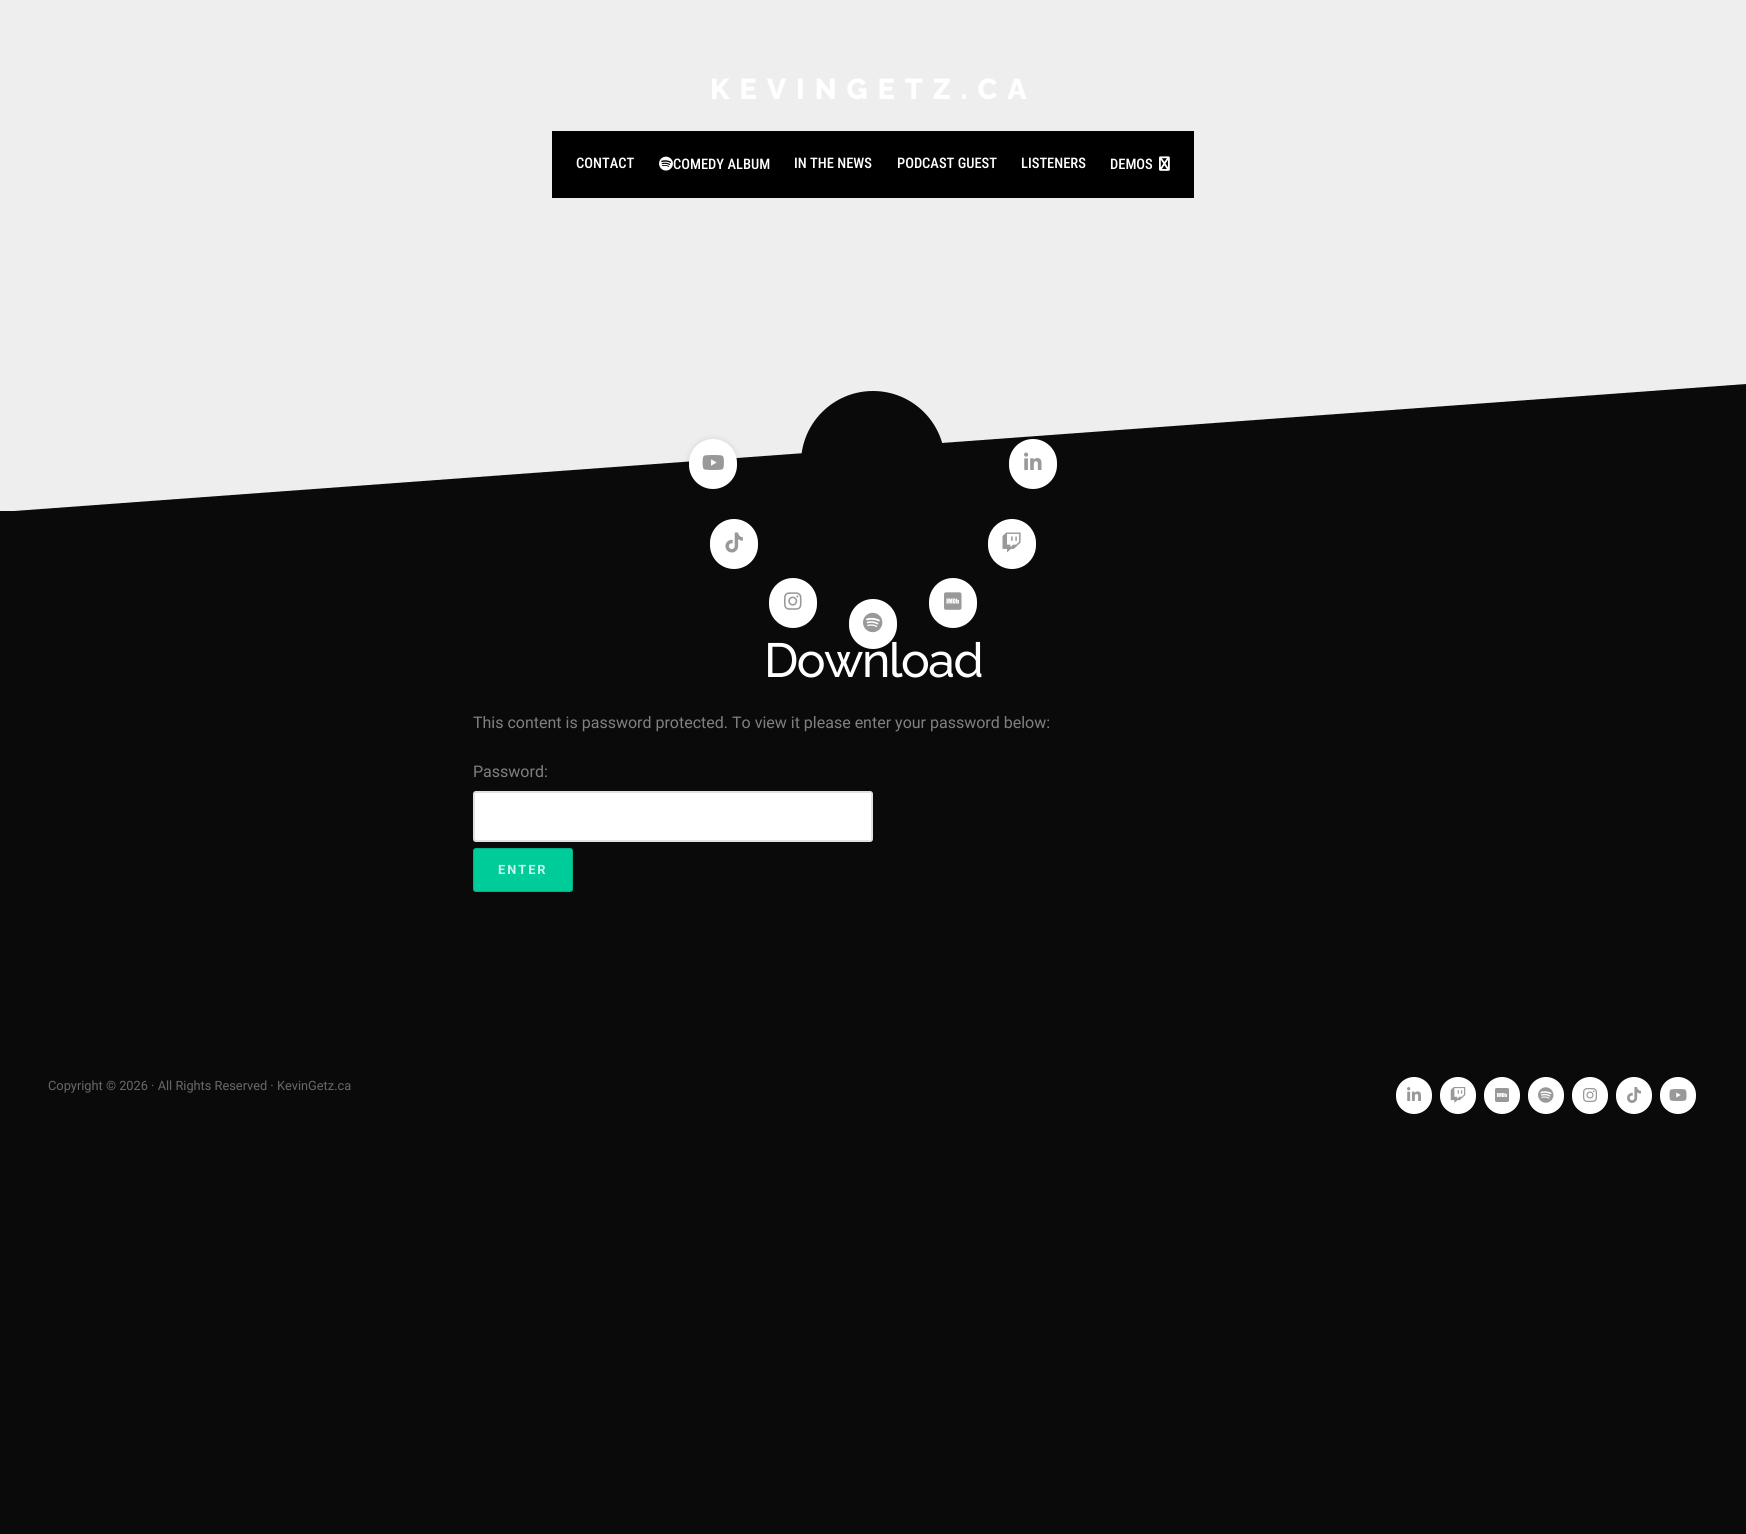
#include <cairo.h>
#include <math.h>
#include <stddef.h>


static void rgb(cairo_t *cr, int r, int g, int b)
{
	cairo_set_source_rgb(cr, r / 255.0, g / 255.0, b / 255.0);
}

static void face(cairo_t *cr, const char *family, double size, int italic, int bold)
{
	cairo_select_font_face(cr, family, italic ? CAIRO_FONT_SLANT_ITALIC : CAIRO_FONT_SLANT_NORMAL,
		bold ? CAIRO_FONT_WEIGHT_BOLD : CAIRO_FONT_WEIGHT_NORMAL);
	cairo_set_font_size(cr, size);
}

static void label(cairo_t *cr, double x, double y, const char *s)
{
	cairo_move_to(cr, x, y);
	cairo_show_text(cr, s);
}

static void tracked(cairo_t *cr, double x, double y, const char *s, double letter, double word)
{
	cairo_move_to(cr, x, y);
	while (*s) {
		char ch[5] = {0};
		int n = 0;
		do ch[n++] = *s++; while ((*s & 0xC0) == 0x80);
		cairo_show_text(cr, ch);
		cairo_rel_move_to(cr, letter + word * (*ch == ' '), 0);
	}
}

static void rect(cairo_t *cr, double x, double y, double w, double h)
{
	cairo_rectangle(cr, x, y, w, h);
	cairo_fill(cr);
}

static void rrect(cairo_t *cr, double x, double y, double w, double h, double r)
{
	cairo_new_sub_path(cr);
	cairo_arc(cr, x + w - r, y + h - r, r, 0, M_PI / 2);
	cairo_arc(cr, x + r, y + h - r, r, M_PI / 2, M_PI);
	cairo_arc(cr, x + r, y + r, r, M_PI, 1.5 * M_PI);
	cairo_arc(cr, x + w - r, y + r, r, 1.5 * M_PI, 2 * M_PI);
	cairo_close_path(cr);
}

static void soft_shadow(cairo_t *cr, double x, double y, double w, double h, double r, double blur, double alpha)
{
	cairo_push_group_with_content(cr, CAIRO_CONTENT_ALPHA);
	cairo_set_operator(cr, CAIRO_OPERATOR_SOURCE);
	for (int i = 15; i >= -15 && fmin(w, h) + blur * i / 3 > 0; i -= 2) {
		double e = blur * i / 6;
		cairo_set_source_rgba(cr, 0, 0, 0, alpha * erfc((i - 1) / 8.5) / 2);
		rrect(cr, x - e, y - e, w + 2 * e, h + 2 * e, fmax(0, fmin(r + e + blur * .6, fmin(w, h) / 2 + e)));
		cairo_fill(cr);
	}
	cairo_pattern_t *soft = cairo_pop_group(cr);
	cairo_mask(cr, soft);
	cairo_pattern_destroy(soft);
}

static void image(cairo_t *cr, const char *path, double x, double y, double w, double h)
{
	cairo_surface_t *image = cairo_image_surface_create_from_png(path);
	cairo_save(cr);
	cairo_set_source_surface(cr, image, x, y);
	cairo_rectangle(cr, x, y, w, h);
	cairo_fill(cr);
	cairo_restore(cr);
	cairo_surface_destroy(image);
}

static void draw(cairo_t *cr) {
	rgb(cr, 10, 10, 10);
	cairo_paint(cr);
	rgb(cr, 238, 238, 238);
	rect(cr, 0, 0, 1746, 511);
	face(cr, "Raleway ExtraBold", 28.75, 0, 0);
	rgb(cr, 255, 255, 255);
	tracked(cr, 710, 99, "KEVINGETZ.CA", 10, 0);
	rgb(cr, 0, 0, 0);
	rect(cr, 552, 131, 642, 67);
	face(cr, "Roboto Condensed Medium", 14.5, 0, 0);
	rgb(cr, 255, 255, 255);
	label(cr, 576, 168, "CONTACT");
	image(cr, "image0.png", 659, 156, 14, 15);
	label(cr, 673, 169, "COMEDY ALBUM");
	label(cr, 794, 168, "IN THE NEWS");
	label(cr, 897, 168, "PODCAST GUEST");
	label(cr, 1021, 168, "LISTENERS");
	label(cr, 1110, 169, "DEMOS");
	image(cr, "image1.png", 1159, 156, 11, 15);
	cairo_save(cr);
	cairo_rectangle(cr, 0, 0, 1746, 511);
	cairo_clip(cr);
	rgb(cr, 10, 10, 10);
	cairo_new_path(cr);
	cairo_move_to(cr, 1746, 384);
	cairo_line_to(cr, 1746, 512);
	cairo_line_to(cr, 0, 512);
	cairo_close_path(cr);
	cairo_fill(cr);
	cairo_restore(cr);
	rgb(cr, 10, 10, 10);
	cairo_arc(cr, 873, 463, 72, 0, 2 * M_PI);
	cairo_fill(cr);
	rgb(cr, 0, 0, 0);
	soft_shadow(cr, 689, 439, 48, 50, 24, 3, 0.12);
	rgb(cr, 255, 255, 255);
	rrect(cr, 689, 439, 48, 50, 24);
	cairo_fill(cr);
	image(cr, "image2.png", 702, 455, 22, 15);
	rrect(cr, 1009, 439, 48, 50, 24);
	cairo_fill(cr);
	image(cr, "image3.png", 1024, 452, 18, 18);
	rrect(cr, 710, 519, 48, 50, 24);
	cairo_fill(cr);
	image(cr, "image4.png", 725, 532, 18, 21);
	rrect(cr, 988, 519, 48, 50, 24);
	cairo_fill(cr);
	image(cr, "image5.png", 1002, 532, 19, 21);
	rrect(cr, 769, 578, 48, 50, 24);
	cairo_fill(cr);
	image(cr, "image6.png", 784, 592, 18, 18);
	rrect(cr, 849, 599, 48, 50, 24);
	cairo_fill(cr);
	image(cr, "image7.png", 863, 612, 20, 21);
	rrect(cr, 929, 578, 48, 50, 24);
	cairo_fill(cr);
	image(cr, "image8.png", 944, 592, 18, 18);
	face(cr, "Raleway Medium", 48, 0, 0);
	tracked(cr, 764, 677, "Download", -1.5, 0);
	face(cr, "Roboto", 16, 0, 0);
	rgb(cr, 128, 128, 128);
	label(cr, 473, 728, "This content is password protected. To view it please enter your password below:");
	label(cr, 473, 777, "Password:");
	rgb(cr, 255, 255, 255);
	rrect(cr, 473, 791, 400, 51, 3);
	cairo_fill(cr);
	rrect(cr, 474, 792, 398, 49, 2);
	cairo_set_source_rgba(cr, 0, 0, 0, 0.12);
	cairo_stroke(cr);
	rgb(cr, 0, 204, 153);
	rrect(cr, 473, 848, 100, 44, 3);
	cairo_fill(cr);
	rrect(cr, 473.5, 848.5, 99, 43, 2.5);
	cairo_set_source_rgba(cr, 0, 0, 0, 0.12);
	cairo_set_line_width(cr, 1);
	cairo_stroke(cr);
	face(cr, "Roboto", 12.8, 0, 1);
	rgb(cr, 204, 245, 235);
	tracked(cr, 498, 874, "ENTER", 2, 0);
	face(cr, "Roboto", 12.8, 0, 0);
	rgb(cr, 104, 104, 104);
	label(cr, 48, 1090, "Copyright © 2026 · All Rights Reserved · KevinGetz.ca");
	rgb(cr, 255, 255, 255);
	rrect(cr, 1396, 1077, 36, 37, 18);
	cairo_fill(cr);
	image(cr, "image9.png", 1407, 1087, 14, 14);
	rrect(cr, 1440, 1077, 36, 37, 18);
	cairo_fill(cr);
	image(cr, "image10.png", 1450, 1087, 16, 16);
	rrect(cr, 1484, 1077, 36, 37, 18);
	cairo_fill(cr);
	image(cr, "image11.png", 1495, 1088, 14, 14);
	rrect(cr, 1528, 1077, 36, 37, 18);
	cairo_fill(cr);
	image(cr, "image12.png", 1538, 1087, 16, 16);
	rrect(cr, 1572, 1077, 36, 37, 18);
	cairo_fill(cr);
	image(cr, "image13.png", 1583, 1088, 14, 14);
	rrect(cr, 1616, 1077, 36, 37, 18);
	cairo_fill(cr);
	image(cr, "image14.png", 1627, 1087, 14, 16);
	rrect(cr, 1660, 1077, 36, 37, 18);
	cairo_fill(cr);
	image(cr, "image15.png", 1669, 1089, 18, 12);
}

int main(void) {
	cairo_surface_t *surface = cairo_image_surface_create(CAIRO_FORMAT_RGB24, 1746, 1534);
	cairo_t *cr = cairo_create(surface);
	cairo_font_options_t *options = cairo_font_options_create();
	cairo_font_options_set_hint_metrics(options, CAIRO_HINT_METRICS_OFF);
	cairo_font_options_set_hint_style(options, CAIRO_HINT_STYLE_NONE);
	cairo_set_font_options(cr, options);
	cairo_set_miter_limit(cr, 4);
	draw(cr);
	cairo_surface_write_to_png(surface, "render.png");
	cairo_font_options_destroy(options);
	cairo_destroy(cr);
	cairo_surface_destroy(surface);
	return 0;
}
